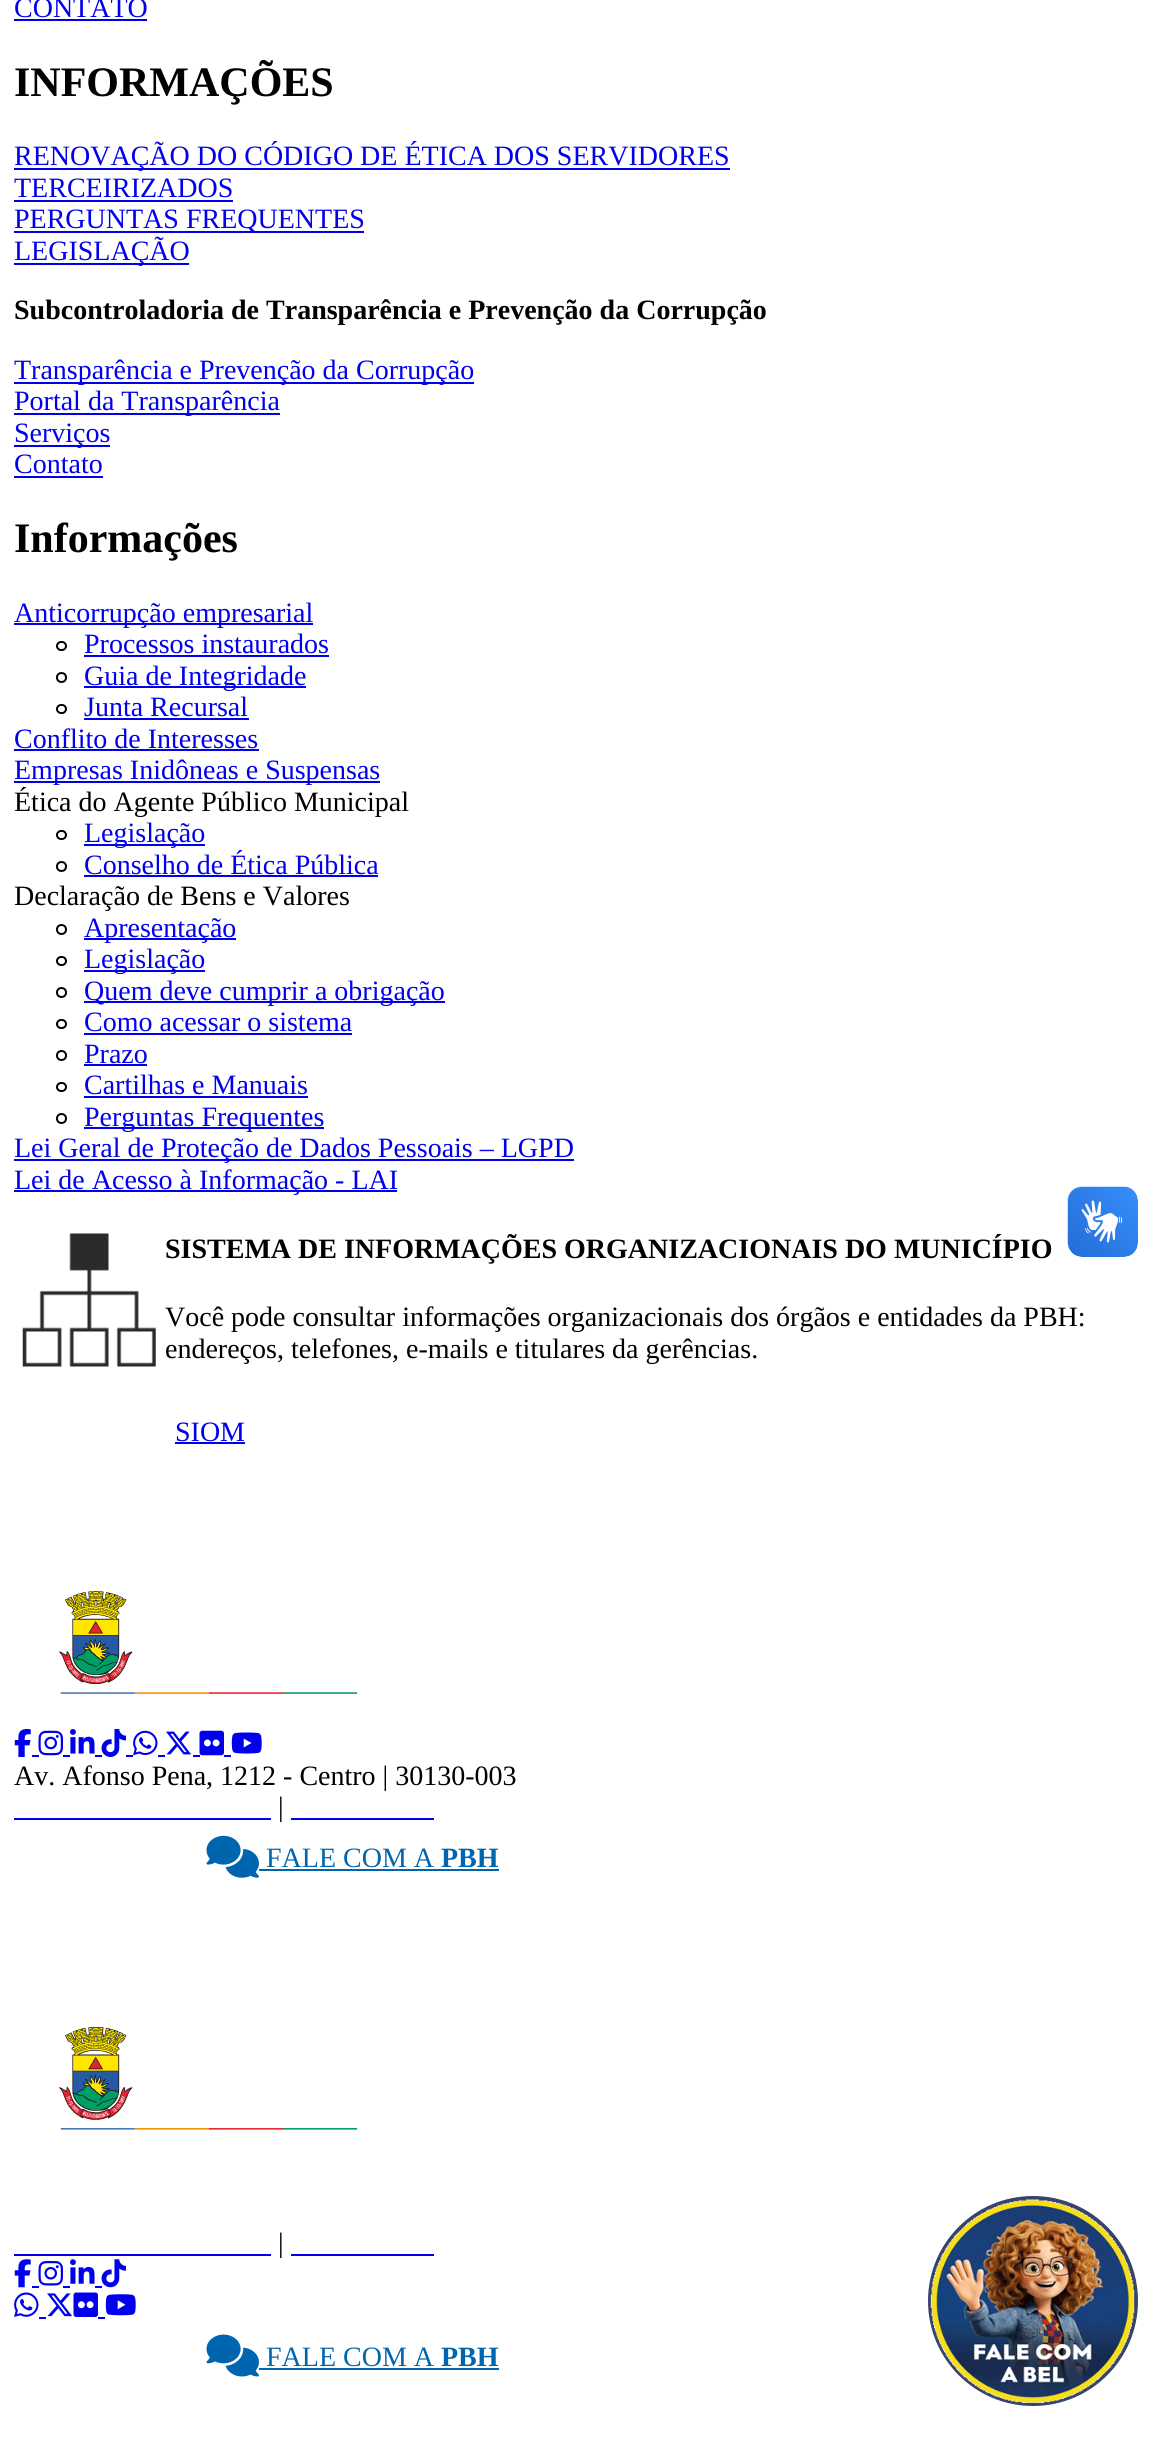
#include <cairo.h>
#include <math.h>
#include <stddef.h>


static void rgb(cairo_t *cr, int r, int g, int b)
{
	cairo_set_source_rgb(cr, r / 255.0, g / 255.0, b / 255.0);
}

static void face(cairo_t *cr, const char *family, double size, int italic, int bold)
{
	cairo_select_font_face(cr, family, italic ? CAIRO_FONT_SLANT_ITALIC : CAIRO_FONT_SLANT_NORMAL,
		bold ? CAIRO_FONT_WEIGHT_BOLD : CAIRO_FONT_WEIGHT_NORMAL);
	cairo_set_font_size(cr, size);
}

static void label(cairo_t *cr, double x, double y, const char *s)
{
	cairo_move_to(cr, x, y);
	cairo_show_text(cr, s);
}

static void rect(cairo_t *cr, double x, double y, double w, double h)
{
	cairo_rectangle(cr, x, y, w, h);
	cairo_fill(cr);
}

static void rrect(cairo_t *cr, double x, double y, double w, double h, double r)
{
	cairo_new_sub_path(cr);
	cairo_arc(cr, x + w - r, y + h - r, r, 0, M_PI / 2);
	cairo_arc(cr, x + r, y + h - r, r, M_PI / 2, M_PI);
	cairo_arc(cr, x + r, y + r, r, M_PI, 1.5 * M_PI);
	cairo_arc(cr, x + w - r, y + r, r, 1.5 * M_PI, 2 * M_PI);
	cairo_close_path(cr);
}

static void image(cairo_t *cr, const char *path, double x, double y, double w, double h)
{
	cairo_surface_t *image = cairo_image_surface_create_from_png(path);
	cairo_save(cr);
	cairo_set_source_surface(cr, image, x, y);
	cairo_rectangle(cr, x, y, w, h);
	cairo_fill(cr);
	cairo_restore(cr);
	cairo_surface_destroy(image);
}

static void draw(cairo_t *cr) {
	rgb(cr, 255, 255, 255);
	cairo_paint(cr);
	face(cr, "Liberation Serif", 28, 0, 0);
	rgb(cr, 0, 0, 238);
	label(cr, 14, 17, "CONTATO");
	rect(cr, 14, 19, 133, 2);
	face(cr, "Liberation Serif", 42, 0, 1);
	rgb(cr, 0, 0, 0);
	label(cr, 14, 96, "INFORMAÇÕES");
	rgb(cr, 0, 0, 238);
	rect(cr, 14, 168, 716, 2);
	face(cr, "Liberation Serif", 28, 0, 0);
	label(cr, 14, 165, "RENOVAÇÃO DO CÓDIGO DE ÉTICA DOS SERVIDORES");
	label(cr, 14, 197, "TERCEIRIZADOS");
	rect(cr, 14, 200, 219, 2);
	rect(cr, 14, 231, 350, 2);
	label(cr, 14, 228, "PERGUNTAS FREQUENTES");
	rect(cr, 14, 263, 175, 2);
	label(cr, 14, 260, "LEGISLAÇÃO");
	face(cr, "Liberation Serif", 28, 0, 1);
	rgb(cr, 0, 0, 0);
	label(cr, 14, 319, "Subcontroladoria de Transparência e Prevenção da Corrupção");
	rgb(cr, 0, 0, 238);
	rect(cr, 14, 382, 460, 2);
	face(cr, "Liberation Serif", 28, 0, 0);
	label(cr, 14, 379, "Transparência e Prevenção da Corrupção");
	rect(cr, 14, 413, 266, 2);
	label(cr, 14, 410, "Portal da Transparência");
	rect(cr, 14, 445, 96, 2);
	label(cr, 14, 442, "Serviços");
	label(cr, 14, 473, "Contato");
	rect(cr, 14, 476, 89, 2);
	face(cr, "Liberation Serif", 42, 0, 1);
	rgb(cr, 0, 0, 0);
	label(cr, 14, 552, "Informações");
	rgb(cr, 0, 0, 238);
	rect(cr, 14, 623, 299, 2);
	face(cr, "Liberation Serif", 28, 0, 0);
	label(cr, 14, 622, "Anticorrupção empresarial");
	rrect(cr, 57, 642, 9, 8, 4);
	rgb(cr, 0, 0, 0);
	cairo_stroke(cr);
	rgb(cr, 0, 0, 238);
	label(cr, 84, 653, "Processos instaurados");
	rect(cr, 84, 655, 245, 2);
	cairo_new_path(cr);
	cairo_arc(cr, 61.5, 677.5, 4.5, 0, 2 * M_PI);
	rgb(cr, 0, 0, 0);
	cairo_stroke(cr);
	rgb(cr, 0, 0, 238);
	rect(cr, 84, 686, 222, 2);
	label(cr, 84, 685, "Guia de Integridade");
	rrect(cr, 57, 705, 9, 8, 4);
	rgb(cr, 0, 0, 0);
	cairo_stroke(cr);
	rgb(cr, 0, 0, 238);
	label(cr, 84, 716, "Junta Recursal");
	rect(cr, 84, 718, 165, 2);
	label(cr, 14, 748, "Conflito de Interesses");
	rect(cr, 14, 749, 245, 2);
	rect(cr, 14, 781, 366, 2);
	label(cr, 14, 779, "Empresas Inidôneas e Suspensas");
	rgb(cr, 0, 0, 0);
	label(cr, 14, 811, "Ética do Agente Público Municipal");
	rrect(cr, 57, 831, 9, 8, 4);
	cairo_stroke(cr);
	rgb(cr, 0, 0, 238);
	rect(cr, 84, 844, 121, 2);
	label(cr, 84, 842, "Legislação");
	cairo_new_path(cr);
	cairo_arc(cr, 61.5, 866.5, 4.5, 0, 2 * M_PI);
	rgb(cr, 0, 0, 0);
	cairo_stroke(cr);
	rgb(cr, 0, 0, 238);
	label(cr, 84, 874, "Conselho de Ética Pública");
	rect(cr, 84, 875, 294, 2);
	rgb(cr, 0, 0, 0);
	label(cr, 14, 905, "Declaração de Bens e Valores");
	cairo_new_path(cr);
	cairo_arc(cr, 61.5, 929.5, 4.5, 0, 2 * M_PI);
	cairo_stroke(cr);
	rgb(cr, 0, 0, 238);
	rect(cr, 84, 938, 152, 2);
	label(cr, 84, 937, "Apresentação");
	rrect(cr, 57, 957, 9, 8, 4);
	rgb(cr, 0, 0, 0);
	cairo_stroke(cr);
	rgb(cr, 0, 0, 238);
	rect(cr, 84, 970, 121, 2);
	label(cr, 84, 968, "Legislação");
	cairo_new_path(cr);
	cairo_arc(cr, 61.5, 992.5, 4.5, 0, 2 * M_PI);
	rgb(cr, 0, 0, 0);
	cairo_stroke(cr);
	rgb(cr, 0, 0, 238);
	rect(cr, 84, 1001, 361, 2);
	label(cr, 84, 1000, "Quem deve cumprir a obrigação");
	rrect(cr, 57, 1020, 9, 8, 4);
	rgb(cr, 0, 0, 0);
	cairo_stroke(cr);
	rgb(cr, 0, 0, 238);
	label(cr, 84, 1031, "Como acessar o sistema");
	rect(cr, 84, 1033, 268, 2);
	cairo_new_path(cr);
	cairo_arc(cr, 61.5, 1055.5, 4.5, 0, 2 * M_PI);
	rgb(cr, 0, 0, 0);
	cairo_stroke(cr);
	rgb(cr, 0, 0, 238);
	label(cr, 84, 1063, "Prazo");
	rect(cr, 84, 1064, 63, 2);
	rrect(cr, 57, 1083, 9, 8, 4);
	rgb(cr, 0, 0, 0);
	cairo_stroke(cr);
	rgb(cr, 0, 0, 238);
	label(cr, 84, 1094, "Cartilhas e Manuais");
	rect(cr, 84, 1096, 224, 2);
	cairo_new_path(cr);
	cairo_arc(cr, 61.5, 1118.5, 4.5, 0, 2 * M_PI);
	rgb(cr, 0, 0, 0);
	cairo_stroke(cr);
	rgb(cr, 0, 0, 238);
	rect(cr, 84, 1127, 240, 2);
	label(cr, 84, 1126, "Perguntas Frequentes");
	rect(cr, 14, 1159, 560, 2);
	label(cr, 14, 1157, "Lei Geral de Proteção de Dados Pessoais – LGPD");
	rect(cr, 14, 1190, 383, 2);
	label(cr, 14, 1189, "Lei de Acesso à Informação - LAI");
	image(cr, "image0.png", 22, 1233, 134, 134);
	face(cr, "Liberation Serif", 28, 0, 1);
	rgb(cr, 0, 0, 0);
	label(cr, 165, 1258, "SISTEMA DE INFORMAÇÕES ORGANIZACIONAIS DO MUNICÍPIO");
	face(cr, "Liberation Serif", 28, 0, 0);
	label(cr, 165, 1326, "Você pode consultar informações organizacionais dos órgãos e entidades da PBH:");
	label(cr, 165, 1358, "endereços, telefones, e-mails e titulares da gerências.");
	rgb(cr, 0, 0, 238);
	label(cr, 175, 1441, "SIOM");
	rect(cr, 175, 1442, 70, 2);
	image(cr, "image1.png", 1067, 1186, 71, 71);
	image(cr, "image2.png", 1068, 1187, 70, 70);
	image(cr, "image3.png", 59, 1591, 299, 103);
	image(cr, "image4.png", 14, 1729, 17, 28);
	rect(cr, 32, 1755, 7, 2);
	image(cr, "image5.png", 38, 1730, 25, 26);
	rect(cr, 63, 1755, 7, 2);
	image(cr, "image6.png", 70, 1729, 25, 25);
	rect(cr, 95, 1755, 7, 2);
	image(cr, "image7.png", 101, 1729, 25, 28);
	rect(cr, 126, 1755, 7, 2);
	image(cr, "image8.png", 133, 1730, 25, 26);
	rect(cr, 158, 1755, 7, 2);
	image(cr, "image9.png", 166, 1731, 25, 24);
	rect(cr, 193, 1755, 7, 2);
	image(cr, "image10.png", 199, 1730, 25, 26);
	rect(cr, 224, 1755, 7, 2);
	image(cr, "image11.png", 231, 1732, 31, 22);
	rgb(cr, 0, 0, 0);
	label(cr, 14, 1785, "Av. Afonso Pena, 1212 - Centro | 30130-003");
	rgb(cr, 0, 0, 238);
	rect(cr, 14, 1818, 257, 2);
	rgb(cr, 0, 0, 0);
	label(cr, 278, 1816, "|");
	rgb(cr, 0, 0, 238);
	rect(cr, 291, 1818, 143, 2);
	image(cr, "image12.png", 206, 1835, 53, 43);
	rgb(cr, 0, 101, 175);
	label(cr, 266, 1867, "FALE COM A");
	rect(cr, 259, 1869, 240, 2);
	face(cr, "Liberation Serif", 28, 0, 1);
	label(cr, 441, 1867, "PBH");
	image(cr, "image13.png", 59, 2027, 299, 103);
	rgb(cr, 0, 0, 238);
	rect(cr, 14, 2254, 257, 2);
	face(cr, "Liberation Serif", 28, 0, 0);
	rgb(cr, 0, 0, 0);
	label(cr, 278, 2252, "|");
	rgb(cr, 0, 0, 238);
	rect(cr, 291, 2254, 143, 2);
	image(cr, "image14.png", 14, 2259, 17, 29);
	rect(cr, 32, 2286, 7, 2);
	image(cr, "image15.png", 38, 2261, 25, 25);
	rect(cr, 63, 2286, 7, 2);
	image(cr, "image16.png", 70, 2259, 25, 25);
	rect(cr, 95, 2286, 7, 2);
	image(cr, "image17.png", 101, 2259, 25, 29);
	image(cr, "image18.png", 14, 2292, 25, 25);
	rect(cr, 39, 2317, 7, 2);
	image(cr, "image19.png", 47, 2293, 25, 24);
	image(cr, "image20.png", 73, 2292, 25, 25);
	rect(cr, 98, 2317, 7, 2);
	image(cr, "image21.png", 105, 2294, 31, 22);
	image(cr, "image22.png", 206, 2334, 53, 43);
	rgb(cr, 0, 101, 175);
	label(cr, 266, 2366, "FALE COM A");
	rect(cr, 259, 2368, 240, 2);
	face(cr, "Liberation Serif", 28, 0, 1);
	label(cr, 441, 2366, "PBH");
	rgb(cr, 54, 67, 109);
	cairo_new_path(cr);
	cairo_arc(cr, 1033, 2301, 105, 0, 2 * M_PI);
	cairo_fill(cr);
	image(cr, "image23.png", 930, 2199, 205, 204);
}

int main(void) {
	cairo_surface_t *surface = cairo_image_surface_create(CAIRO_FORMAT_RGB24, 1154, 2441);
	cairo_t *cr = cairo_create(surface);
	cairo_font_options_t *options = cairo_font_options_create();
	cairo_font_options_set_hint_metrics(options, CAIRO_HINT_METRICS_OFF);
	cairo_font_options_set_hint_style(options, CAIRO_HINT_STYLE_NONE);
	cairo_set_font_options(cr, options);
	cairo_set_miter_limit(cr, 4);
	draw(cr);
	cairo_surface_write_to_png(surface, "render.png");
	cairo_font_options_destroy(options);
	cairo_destroy(cr);
	cairo_surface_destroy(surface);
	return 0;
}
